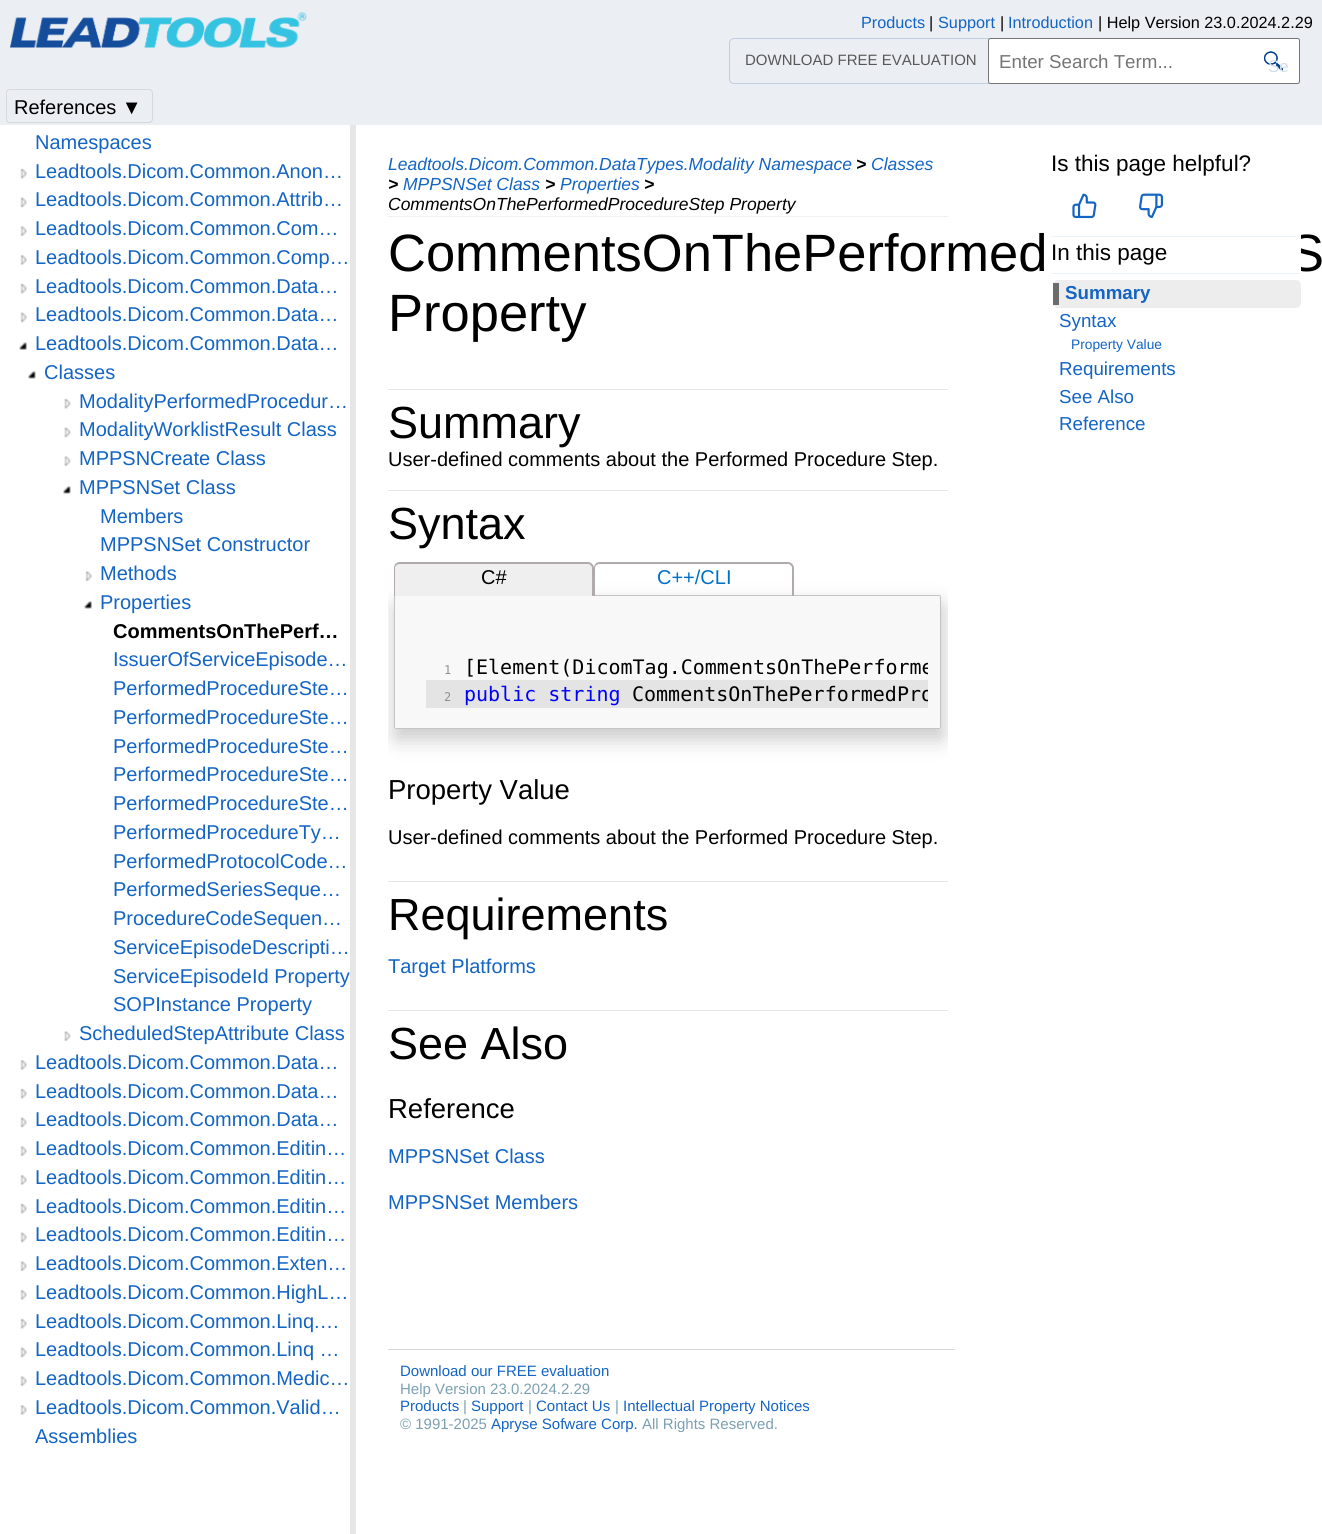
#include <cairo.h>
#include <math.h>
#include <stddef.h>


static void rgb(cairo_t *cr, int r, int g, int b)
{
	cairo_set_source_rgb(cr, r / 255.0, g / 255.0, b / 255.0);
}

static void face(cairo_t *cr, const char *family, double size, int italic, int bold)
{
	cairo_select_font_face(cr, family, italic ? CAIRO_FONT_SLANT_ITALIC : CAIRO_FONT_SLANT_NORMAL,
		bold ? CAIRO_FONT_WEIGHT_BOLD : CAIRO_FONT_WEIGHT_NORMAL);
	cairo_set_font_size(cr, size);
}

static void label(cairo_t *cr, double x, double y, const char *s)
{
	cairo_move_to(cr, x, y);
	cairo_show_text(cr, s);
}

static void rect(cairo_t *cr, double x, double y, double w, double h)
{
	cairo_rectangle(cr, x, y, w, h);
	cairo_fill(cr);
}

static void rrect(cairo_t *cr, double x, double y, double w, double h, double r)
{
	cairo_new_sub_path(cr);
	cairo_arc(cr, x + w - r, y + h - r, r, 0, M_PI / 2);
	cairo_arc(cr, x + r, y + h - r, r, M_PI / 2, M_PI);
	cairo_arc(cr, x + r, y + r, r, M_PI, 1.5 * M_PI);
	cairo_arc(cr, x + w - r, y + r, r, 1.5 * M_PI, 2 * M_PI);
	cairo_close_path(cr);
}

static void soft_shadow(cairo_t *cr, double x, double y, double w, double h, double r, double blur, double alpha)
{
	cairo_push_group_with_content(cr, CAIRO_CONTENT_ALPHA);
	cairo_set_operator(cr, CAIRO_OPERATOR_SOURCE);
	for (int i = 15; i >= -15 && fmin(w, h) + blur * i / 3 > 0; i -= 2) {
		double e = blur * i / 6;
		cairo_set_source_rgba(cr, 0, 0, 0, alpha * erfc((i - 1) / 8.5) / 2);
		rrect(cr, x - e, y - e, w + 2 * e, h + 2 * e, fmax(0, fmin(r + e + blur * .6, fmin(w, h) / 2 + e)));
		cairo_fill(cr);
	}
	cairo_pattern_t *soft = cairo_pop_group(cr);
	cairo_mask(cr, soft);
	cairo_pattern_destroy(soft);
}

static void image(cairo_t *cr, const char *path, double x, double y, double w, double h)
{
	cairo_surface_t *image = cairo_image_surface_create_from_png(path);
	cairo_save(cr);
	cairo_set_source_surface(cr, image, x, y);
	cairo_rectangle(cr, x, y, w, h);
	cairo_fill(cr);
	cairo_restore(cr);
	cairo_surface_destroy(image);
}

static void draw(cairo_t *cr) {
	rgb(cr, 255, 255, 255);
	cairo_paint(cr);
	rgb(cr, 235, 238, 243);
	rect(cr, 0, 0, 1322, 125);
	image(cr, "image0.png", 10, 12, 297, 36);
	face(cr, "Liberation Sans", 16.25, 0, 0);
	rgb(cr, 19, 100, 196);
	label(cr, 861, 28, "Products");
	rgb(cr, 0, 0, 0);
	label(cr, 929, 28, "|");
	rgb(cr, 19, 100, 196);
	label(cr, 938, 28, "Support");
	rgb(cr, 0, 0, 0);
	label(cr, 1000, 28, "|");
	rgb(cr, 19, 100, 196);
	label(cr, 1008, 28, "Introduction");
	rgb(cr, 0, 0, 0);
	label(cr, 1098, 28, "| Help Version 23.0.2024.2.29");
	rrect(cr, 729.5, 38.5, 264, 45, 4.5);
	rgb(cr, 192, 206, 225);
	cairo_set_line_width(cr, 1);
	cairo_stroke(cr);
	face(cr, "Liberation Sans", 15, 0, 0);
	rgb(cr, 88, 88, 88);
	label(cr, 745, 65, "DOWNLOAD FREE EVALUATION");
	rgb(cr, 255, 255, 255);
	rrect(cr, 988.5, 38.5, 311, 45, 2);
	cairo_fill_preserve(cr);
	rgb(cr, 118, 118, 118);
	cairo_stroke(cr);
	face(cr, "Liberation Sans", 18.75, 0, 0);
	rgb(cr, 117, 117, 117);
	label(cr, 999, 68, "Enter Search Term...");
	image(cr, "image1.png", 1264, 51, 19, 20);
	face(cr, "Liberation Sans", 17, 0, 0);
	rgb(cr, 211, 222, 234);
	label(cr, 1268, 72, "Se");
	rrect(cr, 6.5, 89.5, 146, 33, 3.5);
	rgb(cr, 214, 216, 220);
	cairo_stroke(cr);
	face(cr, "Liberation Sans", 20, 0, 0);
	rgb(cr, 0, 0, 0);
	label(cr, 14, 114, "References ▼");
	rgb(cr, 230, 230, 230);
	rect(cr, 350, 125, 6, 1409);
	rgb(cr, 19, 100, 196);
	label(cr, 35, 149, "Namespaces");
	image(cr, "image2.png", 20, 168, 7, 11);
	label(cr, 35, 178, "Leadtools.Dicom.Common.Anon…");
	image(cr, "image3.png", 20, 197, 7, 11);
	label(cr, 35, 206, "Leadtools.Dicom.Common.Attrib…");
	image(cr, "image4.png", 20, 226, 7, 11);
	label(cr, 35, 235, "Leadtools.Dicom.Common.Com…");
	image(cr, "image5.png", 20, 255, 7, 10);
	label(cr, 35, 264, "Leadtools.Dicom.Common.Comp…");
	image(cr, "image2.png", 20, 283, 7, 11);
	label(cr, 35, 293, "Leadtools.Dicom.Common.Data…");
	image(cr, "image3.png", 20, 312, 7, 11);
	label(cr, 35, 321, "Leadtools.Dicom.Common.Data…");
	image(cr, "image6.png", 19, 342, 8, 8);
	label(cr, 35, 350, "Leadtools.Dicom.Common.Data…");
	image(cr, "image7.png", 28, 371, 8, 8);
	label(cr, 44, 379, "Classes");
	image(cr, "image8.png", 64, 398, 7, 11);
	label(cr, 79, 408, "ModalityPerformedProcedur…");
	image(cr, "image9.png", 64, 427, 7, 11);
	label(cr, 79, 436, "ModalityWorklistResult Class");
	image(cr, "image10.png", 64, 456, 7, 11);
	label(cr, 79, 465, "MPPSNCreate Class");
	image(cr, "image7.png", 63, 486, 8, 8);
	label(cr, 79, 494, "MPPSNSet Class");
	label(cr, 100, 523, "Members");
	label(cr, 100, 551, "MPPSNSet Constructor");
	image(cr, "image4.png", 85, 571, 7, 11);
	label(cr, 100, 580, "Methods");
	image(cr, "image11.png", 84, 601, 8, 8);
	label(cr, 100, 609, "Properties");
	face(cr, "Liberation Sans", 20, 0, 1);
	rgb(cr, 0, 0, 0);
	label(cr, 113, 638, "CommentsOnThePerf…");
	face(cr, "Liberation Sans", 20, 0, 0);
	rgb(cr, 19, 100, 196);
	label(cr, 113, 666, "IssuerOfServiceEpisode…");
	label(cr, 113, 695, "PerformedProcedureSte…");
	label(cr, 113, 724, "PerformedProcedureSte…");
	label(cr, 113, 753, "PerformedProcedureSte…");
	label(cr, 113, 781, "PerformedProcedureSte…");
	label(cr, 113, 810, "PerformedProcedureSte…");
	label(cr, 113, 839, "PerformedProcedureTy…");
	label(cr, 113, 868, "PerformedProtocolCode…");
	label(cr, 113, 896, "PerformedSeriesSeque…");
	label(cr, 113, 925, "ProcedureCodeSequen…");
	label(cr, 113, 954, "ServiceEpisodeDescripti…");
	label(cr, 113, 983, "ServiceEpisodeId Property");
	label(cr, 113, 1011, "SOPInstance Property");
	image(cr, "image10.png", 64, 1031, 7, 11);
	label(cr, 79, 1040, "ScheduledStepAttribute Class");
	image(cr, "image5.png", 20, 1060, 7, 10);
	label(cr, 35, 1069, "Leadtools.Dicom.Common.Data…");
	image(cr, "image2.png", 20, 1088, 7, 11);
	label(cr, 35, 1098, "Leadtools.Dicom.Common.Data…");
	image(cr, "image3.png", 20, 1117, 7, 11);
	label(cr, 35, 1126, "Leadtools.Dicom.Common.Data…");
	image(cr, "image4.png", 20, 1146, 7, 11);
	label(cr, 35, 1155, "Leadtools.Dicom.Common.Editin…");
	image(cr, "image12.png", 20, 1175, 7, 10);
	label(cr, 35, 1184, "Leadtools.Dicom.Common.Editin…");
	image(cr, "image2.png", 20, 1203, 7, 11);
	label(cr, 35, 1213, "Leadtools.Dicom.Common.Editin…");
	image(cr, "image3.png", 20, 1232, 7, 11);
	label(cr, 35, 1241, "Leadtools.Dicom.Common.Editin…");
	image(cr, "image4.png", 20, 1261, 7, 11);
	label(cr, 35, 1270, "Leadtools.Dicom.Common.Exten…");
	image(cr, "image5.png", 20, 1290, 7, 10);
	label(cr, 35, 1299, "Leadtools.Dicom.Common.HighL…");
	image(cr, "image2.png", 20, 1318, 7, 11);
	label(cr, 35, 1328, "Leadtools.Dicom.Common.Linq.…");
	image(cr, "image3.png", 20, 1347, 7, 11);
	label(cr, 35, 1356, "Leadtools.Dicom.Common.Linq …");
	image(cr, "image4.png", 20, 1376, 7, 11);
	label(cr, 35, 1385, "Leadtools.Dicom.Common.Medic…");
	image(cr, "image5.png", 20, 1405, 7, 10);
	label(cr, 35, 1414, "Leadtools.Dicom.Common.Valid…");
	label(cr, 35, 1443, "Assemblies");
	rgb(cr, 241, 241, 241);
	rect(cr, 388, 216, 560, 1);
	face(cr, "Liberation Sans", 17.5, 1, 0);
	rgb(cr, 19, 100, 196);
	label(cr, 388, 170, "Leadtools.Dicom.Common.DataTypes.Modality Namespace");
	face(cr, "Liberation Sans", 17.5, 1, 1);
	rgb(cr, 0, 0, 0);
	label(cr, 856, 170, ">");
	face(cr, "Liberation Sans", 17.5, 1, 0);
	rgb(cr, 19, 100, 196);
	label(cr, 871, 170, "Classes");
	face(cr, "Liberation Sans", 17.5, 1, 1);
	rgb(cr, 0, 0, 0);
	label(cr, 388, 190, ">");
	face(cr, "Liberation Sans", 17.5, 1, 0);
	rgb(cr, 19, 100, 196);
	label(cr, 403, 190, "MPPSNSet Class");
	face(cr, "Liberation Sans", 17.5, 1, 1);
	rgb(cr, 0, 0, 0);
	label(cr, 545, 190, ">");
	face(cr, "Liberation Sans", 17.5, 1, 0);
	rgb(cr, 19, 100, 196);
	label(cr, 560, 190, "Properties");
	face(cr, "Liberation Sans", 17.5, 1, 1);
	rgb(cr, 0, 0, 0);
	label(cr, 644, 190, ">");
	face(cr, "Liberation Sans", 17.5, 1, 0);
	label(cr, 388, 210, "CommentsOnThePerformedProcedureStep Property");
	face(cr, "Liberation Sans", 52.5, 0, 0);
	label(cr, 1289, 271, "S");
	rgb(cr, 255, 255, 255);
	rect(cr, 1291, 235, 10, 36);
	face(cr, "Liberation Sans", 22.5, 0, 0);
	rgb(cr, 0, 0, 0);
	label(cr, 1051, 171, "Is this page helpful?");
	image(cr, "image13.png", 1072, 193, 25, 26);
	image(cr, "image14.png", 1139, 193, 25, 25);
	rgb(cr, 237, 245, 251);
	rect(cr, 1051, 236, 250, 1);
	rect(cr, 1051, 273, 250, 1);
	rgb(cr, 0, 0, 0);
	label(cr, 1051, 260, "In this page");
	rgb(cr, 237, 237, 237);
	rrect(cr, 1053, 280, 248, 28, 5);
	cairo_fill(cr);
	cairo_set_source_rgba(cr, 0.302, 0.302, 0.302, 0.8);
	rect(cr, 1053, 283, 6, 22);
	face(cr, "Liberation Sans", 18.75, 0, 1);
	rgb(cr, 19, 100, 196);
	label(cr, 1065, 299, "Summary");
	face(cr, "Liberation Sans", 18.75, 0, 0);
	label(cr, 1059, 327, "Syntax");
	face(cr, "Liberation Sans", 13.75, 0, 0);
	label(cr, 1071, 349, "Property Value");
	face(cr, "Liberation Sans", 18.75, 0, 0);
	label(cr, 1059, 375, "Requirements");
	label(cr, 1059, 403, "See Also");
	label(cr, 1059, 430, "Reference");
	face(cr, "Liberation Sans", 52.5, 0, 0);
	rgb(cr, 0, 0, 0);
	label(cr, 388, 271, "CommentsOnThePerformed");
	label(cr, 388, 331, "Property");
	rgb(cr, 230, 230, 230);
	rect(cr, 388, 389, 560, 1);
	face(cr, "Liberation Sans", 45, 0, 0);
	rgb(cr, 0, 0, 0);
	label(cr, 388, 438, "Summary");
	face(cr, "Liberation Sans", 20, 0, 0);
	label(cr, 388, 466, "User-defined comments about the Performed Procedure Step.");
	rgb(cr, 230, 230, 230);
	rect(cr, 388, 490, 560, 1);
	face(cr, "Liberation Sans", 45, 0, 0);
	rgb(cr, 0, 0, 0);
	label(cr, 388, 539, "Syntax");
	cairo_save(cr);
	cairo_rectangle(cr, 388, 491, 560, 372);
	cairo_clip(cr);
	cairo_set_fill_rule(cr, CAIRO_FILL_RULE_EVEN_ODD);
	cairo_new_path(cr);
	cairo_move_to(cr, 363, 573);
	cairo_line_to(cr, 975, 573);
	cairo_line_to(cr, 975, 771);
	cairo_line_to(cr, 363, 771);
	cairo_close_path(cr);
	cairo_move_to(cr, 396, 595);
	cairo_line_to(cr, 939, 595);
	cairo_curve_to(cr, 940, 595, 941, 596, 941, 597);
	cairo_line_to(cr, 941, 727);
	cairo_curve_to(cr, 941, 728, 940, 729, 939, 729);
	cairo_line_to(cr, 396, 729);
	cairo_curve_to(cr, 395, 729, 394, 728, 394, 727);
	cairo_line_to(cr, 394, 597);
	cairo_curve_to(cr, 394, 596, 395, 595, 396, 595);
	cairo_close_path(cr);
	cairo_clip(cr);
	rgb(cr, 0, 0, 0);
	soft_shadow(cr, 394, 604, 550, 136, 3, 10, 0.2);
	cairo_restore(cr);
	cairo_set_source_rgba(cr, 0.933, 0.937, 0.941, 0.4);
	rrect(cr, 394, 595, 547, 134, 2);
	cairo_fill(cr);
	rrect(cr, 394.5, 595.5, 546, 133, 1.5);
	cairo_set_source_rgba(cr, 0.463, 0.463, 0.463, 0.4);
	cairo_stroke(cr);
	rgb(cr, 239, 239, 239);
	cairo_new_path(cr);
	cairo_move_to(cr, 400, 564);
	cairo_line_to(cr, 588, 564);
	cairo_curve_to(cr, 591, 564, 593, 566, 593, 569);
	cairo_line_to(cr, 593, 596);
	cairo_line_to(cr, 395, 596);
	cairo_line_to(cr, 395, 569);
	cairo_curve_to(cr, 395, 566, 397, 564, 400, 564);
	cairo_close_path(cr);
	cairo_fill(cr);
	rgb(cr, 176, 170, 170);
	cairo_set_fill_rule(cr, CAIRO_FILL_RULE_EVEN_ODD);
	cairo_new_path(cr);
	cairo_move_to(cr, 400, 562);
	cairo_line_to(cr, 588, 562);
	cairo_curve_to(cr, 591, 562, 594, 565, 594, 568);
	cairo_line_to(cr, 594, 596);
	cairo_line_to(cr, 394, 596);
	cairo_line_to(cr, 394, 568);
	cairo_curve_to(cr, 394, 565, 396, 562, 400, 562);
	cairo_close_path(cr);
	cairo_move_to(cr, 400, 564);
	cairo_line_to(cr, 588, 564);
	cairo_curve_to(cr, 590, 564, 592, 566, 592, 568);
	cairo_line_to(cr, 592, 596);
	cairo_line_to(cr, 395, 596);
	cairo_line_to(cr, 395, 568);
	cairo_curve_to(cr, 395, 566, 397, 564, 400, 564);
	cairo_close_path(cr);
	cairo_fill(cr);
	face(cr, "Liberation Sans", 20, 0, 0);
	rgb(cr, 0, 0, 0);
	label(cr, 481, 584, "C#");
	rgb(cr, 176, 170, 170);
	cairo_new_path(cr);
	cairo_move_to(cr, 600, 562);
	cairo_line_to(cr, 788, 562);
	cairo_curve_to(cr, 791, 562, 794, 565, 794, 568);
	cairo_line_to(cr, 794, 596);
	cairo_line_to(cr, 594, 596);
	cairo_line_to(cr, 594, 568);
	cairo_curve_to(cr, 594, 565, 596, 562, 600, 562);
	cairo_close_path(cr);
	cairo_move_to(cr, 600, 564);
	cairo_line_to(cr, 788, 564);
	cairo_curve_to(cr, 790, 564, 792, 566, 792, 568);
	cairo_line_to(cr, 792, 596);
	cairo_line_to(cr, 595, 596);
	cairo_line_to(cr, 595, 568);
	cairo_curve_to(cr, 595, 566, 597, 564, 600, 564);
	cairo_close_path(cr);
	cairo_fill(cr);
	rgb(cr, 0, 114, 198);
	label(cr, 657, 584, "C++/CLI");
	rgb(cr, 228, 228, 228);
	rect(cr, 426, 680, 502, 28);
	face(cr, "DejaVu Sans Mono", 12, 0, 0);
	rgb(cr, 144, 144, 144);
	label(cr, 444, 674, "1");
	cairo_save(cr);
	cairo_set_fill_rule(cr, CAIRO_FILL_RULE_WINDING);
	cairo_rectangle(cr, 426, 653, 502, 55);
	cairo_clip(cr);
	face(cr, "DejaVu Sans Mono", 20, 0, 0);
	rgb(cr, 0, 0, 0);
	label(cr, 464, 674, "[Element(DicomTag.CommentsOnThePerforme");
	cairo_restore(cr);
	label(cr, 444, 701, "2");
	face(cr, "DejaVu Sans Mono", 20, 0, 0);
	rgb(cr, 0, 0, 255);
	label(cr, 464, 701, "public string");
	cairo_save(cr);
	cairo_set_fill_rule(cr, CAIRO_FILL_RULE_WINDING);
	cairo_rectangle(cr, 426, 653, 502, 55);
	cairo_clip(cr);
	rgb(cr, 0, 0, 0);
	label(cr, 632, 701, "CommentsOnThePerformedPro");
	cairo_restore(cr);
	face(cr, "Liberation Sans", 27.5, 0, 0);
	rgb(cr, 0, 0, 0);
	label(cr, 388, 799, "Property Value");
	face(cr, "Liberation Sans", 20, 0, 0);
	label(cr, 388, 844, "User-defined comments about the Performed Procedure Step.");
	rgb(cr, 230, 230, 230);
	rect(cr, 388, 881, 560, 1);
	face(cr, "Liberation Sans", 45, 0, 0);
	rgb(cr, 0, 0, 0);
	label(cr, 388, 930, "Requirements");
	face(cr, "Liberation Sans", 20, 0, 0);
	rgb(cr, 19, 100, 196);
	label(cr, 388, 973, "Target Platforms");
	rgb(cr, 230, 230, 230);
	rect(cr, 388, 1010, 560, 1);
	face(cr, "Liberation Sans", 45, 0, 0);
	rgb(cr, 0, 0, 0);
	label(cr, 388, 1059, "See Also");
	face(cr, "Liberation Sans", 27.5, 0, 0);
	label(cr, 388, 1118, "Reference");
	face(cr, "Liberation Sans", 20, 0, 0);
	rgb(cr, 19, 100, 196);
	label(cr, 388, 1163, "MPPSNSet Class");
	label(cr, 388, 1209, "MPPSNSet Members");
	rgb(cr, 213, 216, 220);
	rect(cr, 388, 1349, 567, 1);
	face(cr, "Liberation Sans", 15, 0, 0);
	rgb(cr, 19, 100, 196);
	label(cr, 400, 1376, "Download our FREE evaluation");
	rgb(cr, 123, 160, 178);
	label(cr, 400, 1394, "Help Version 23.0.2024.2.29");
	rgb(cr, 19, 100, 196);
	label(cr, 400, 1411, "Products");
	rgb(cr, 123, 160, 178);
	label(cr, 463, 1411, "|");
	rgb(cr, 19, 100, 196);
	label(cr, 471, 1411, "Support");
	rgb(cr, 123, 160, 178);
	label(cr, 528, 1411, "|");
	rgb(cr, 19, 100, 196);
	label(cr, 536, 1411, "Contact Us");
	rgb(cr, 123, 160, 178);
	label(cr, 615, 1411, "|");
	rgb(cr, 19, 100, 196);
	label(cr, 623, 1411, "Intellectual Property Notices");
	rgb(cr, 123, 160, 178);
	label(cr, 400, 1429, "© 1991-2025");
	rgb(cr, 19, 100, 196);
	label(cr, 491, 1429, "Apryse Sofware Corp.");
	rgb(cr, 123, 160, 178);
	label(cr, 642, 1429, "All Rights Reserved.");
}

int main(void) {
	cairo_surface_t *surface = cairo_image_surface_create(CAIRO_FORMAT_RGB24, 1322, 1534);
	cairo_t *cr = cairo_create(surface);
	cairo_font_options_t *options = cairo_font_options_create();
	cairo_font_options_set_hint_metrics(options, CAIRO_HINT_METRICS_OFF);
	cairo_font_options_set_hint_style(options, CAIRO_HINT_STYLE_NONE);
	cairo_set_font_options(cr, options);
	cairo_set_miter_limit(cr, 4);
	draw(cr);
	cairo_surface_write_to_png(surface, "render.png");
	cairo_font_options_destroy(options);
	cairo_destroy(cr);
	cairo_surface_destroy(surface);
	return 0;
}
